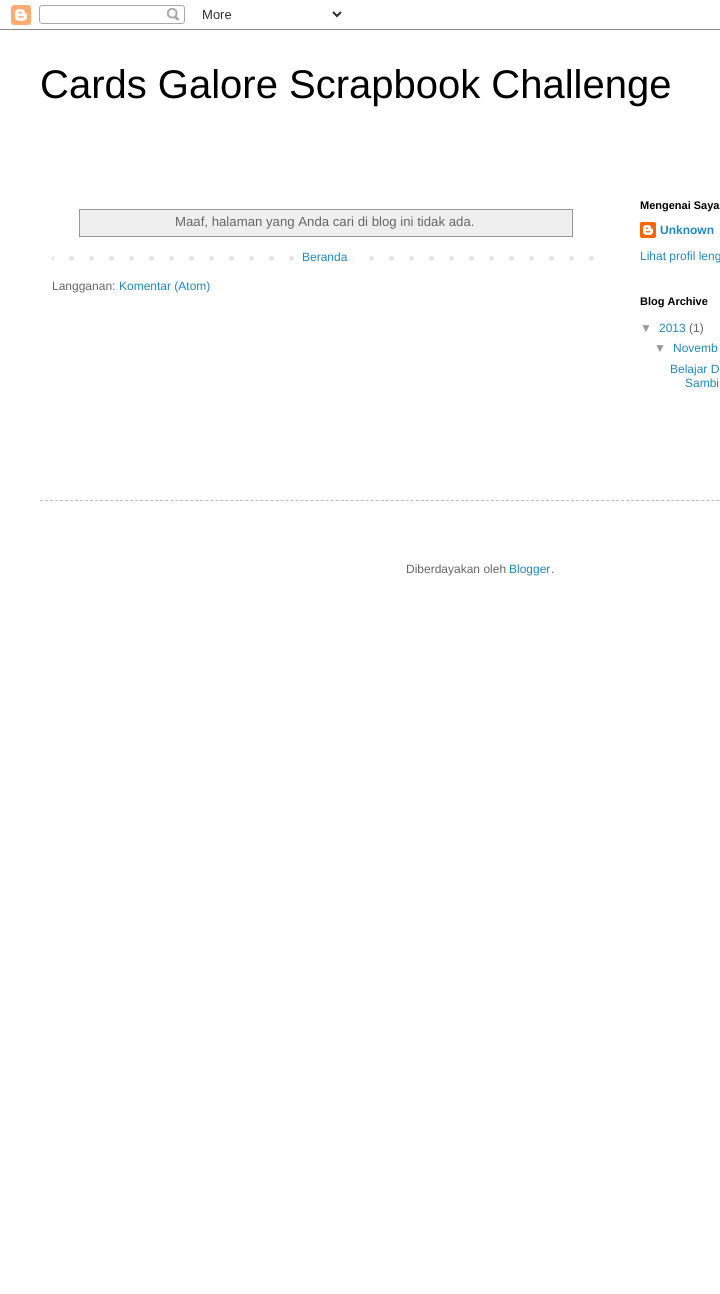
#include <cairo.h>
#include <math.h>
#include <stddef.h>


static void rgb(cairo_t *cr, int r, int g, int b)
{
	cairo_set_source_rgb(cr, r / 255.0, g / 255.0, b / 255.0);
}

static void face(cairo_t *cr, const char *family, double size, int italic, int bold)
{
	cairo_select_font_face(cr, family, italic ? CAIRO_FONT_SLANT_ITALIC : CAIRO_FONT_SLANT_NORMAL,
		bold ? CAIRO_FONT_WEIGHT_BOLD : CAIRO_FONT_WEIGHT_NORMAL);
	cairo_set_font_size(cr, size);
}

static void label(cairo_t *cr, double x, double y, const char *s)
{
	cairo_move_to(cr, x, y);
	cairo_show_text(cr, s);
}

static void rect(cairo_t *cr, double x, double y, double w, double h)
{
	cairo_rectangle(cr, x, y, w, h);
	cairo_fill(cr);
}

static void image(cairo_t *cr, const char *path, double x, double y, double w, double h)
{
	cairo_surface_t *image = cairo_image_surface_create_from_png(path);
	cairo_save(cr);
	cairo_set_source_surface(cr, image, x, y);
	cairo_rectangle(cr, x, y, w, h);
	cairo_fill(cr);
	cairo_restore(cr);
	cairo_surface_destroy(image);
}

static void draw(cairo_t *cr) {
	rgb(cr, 255, 255, 255);
	cairo_paint(cr);
	image(cr, "image0.png", 0, 5, 720, 25);
	face(cr, "Liberation Sans", 40, 0, 0);
	rgb(cr, 0, 0, 0);
	label(cr, 40, 98, "Cards Galore Scrapbook Challenge");
	cairo_rectangle(cr, 79.5, 209.5, 493, 27);
	rgb(cr, 153, 153, 153);
	cairo_set_line_width(cr, 1);
	cairo_stroke(cr);
	rgb(cr, 239, 239, 239);
	rect(cr, 80, 210, 492, 26);
	face(cr, "Liberation Sans", 13.2, 0, 0);
	rgb(cr, 102, 102, 102);
	label(cr, 175, 226, "Maaf, halaman yang Anda cari di blog ini tidak ada.");
	image(cr, "image1.png", 52, 256, 542, 5);
	rgb(cr, 255, 255, 255);
	rect(cr, 309, 256, 44, 5);
	face(cr, "Liberation Sans", 12, 0, 0);
	rgb(cr, 34, 136, 187);
	label(cr, 302, 261, "Beranda");
	rgb(cr, 102, 102, 102);
	label(cr, 52, 290, "Langganan:");
	rgb(cr, 34, 136, 187);
	label(cr, 119, 290, "Komentar (Atom)");
	face(cr, "Liberation Sans", 11, 0, 1);
	rgb(cr, 0, 0, 0);
	label(cr, 640, 209, "Mengenai Saya");
	image(cr, "image2.png", 640, 222, 16, 16);
	face(cr, "Liberation Sans", 12, 0, 1);
	rgb(cr, 34, 136, 187);
	label(cr, 660, 234, "Unknown");
	face(cr, "Liberation Sans", 12, 0, 0);
	label(cr, 640, 260, "Lihat profil leng");
	face(cr, "Liberation Sans", 11, 0, 1);
	rgb(cr, 0, 0, 0);
	label(cr, 640, 305, "Blog Archive");
	face(cr, "Liberation Sans", 12, 0, 0);
	rgb(cr, 153, 153, 153);
	label(cr, 640, 332, "▼");
	rgb(cr, 34, 136, 187);
	label(cr, 659, 332, "2013");
	rgb(cr, 102, 102, 102);
	label(cr, 689, 332, "(1)");
	rgb(cr, 153, 153, 153);
	label(cr, 654, 352, "▼");
	rgb(cr, 34, 136, 187);
	label(cr, 673, 352, "Novemb");
	label(cr, 670, 373, "Belajar D");
	label(cr, 685, 387, "Sambi");
	cairo_new_path(cr);
	cairo_move_to(cr, 40, 500.5);
	cairo_line_to(cr, 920, 500.5);
	rgb(cr, 187, 187, 187);
	cairo_set_dash(cr, (double[]){3, 2.01}, 2, 0);
	cairo_stroke(cr);
	rgb(cr, 102, 102, 102);
	label(cr, 406, 573, "Diberdayakan oleh");
	rgb(cr, 34, 136, 187);
	label(cr, 509, 573, "Blogger");
	rgb(cr, 102, 102, 102);
	label(cr, 551, 573, ".");
}

int main(void) {
	cairo_surface_t *surface = cairo_image_surface_create(CAIRO_FORMAT_RGB24, 720, 1294);
	cairo_t *cr = cairo_create(surface);
	cairo_font_options_t *options = cairo_font_options_create();
	cairo_font_options_set_hint_metrics(options, CAIRO_HINT_METRICS_OFF);
	cairo_font_options_set_hint_style(options, CAIRO_HINT_STYLE_NONE);
	cairo_set_font_options(cr, options);
	cairo_set_miter_limit(cr, 4);
	draw(cr);
	cairo_surface_write_to_png(surface, "render.png");
	cairo_font_options_destroy(options);
	cairo_destroy(cr);
	cairo_surface_destroy(surface);
	return 0;
}
